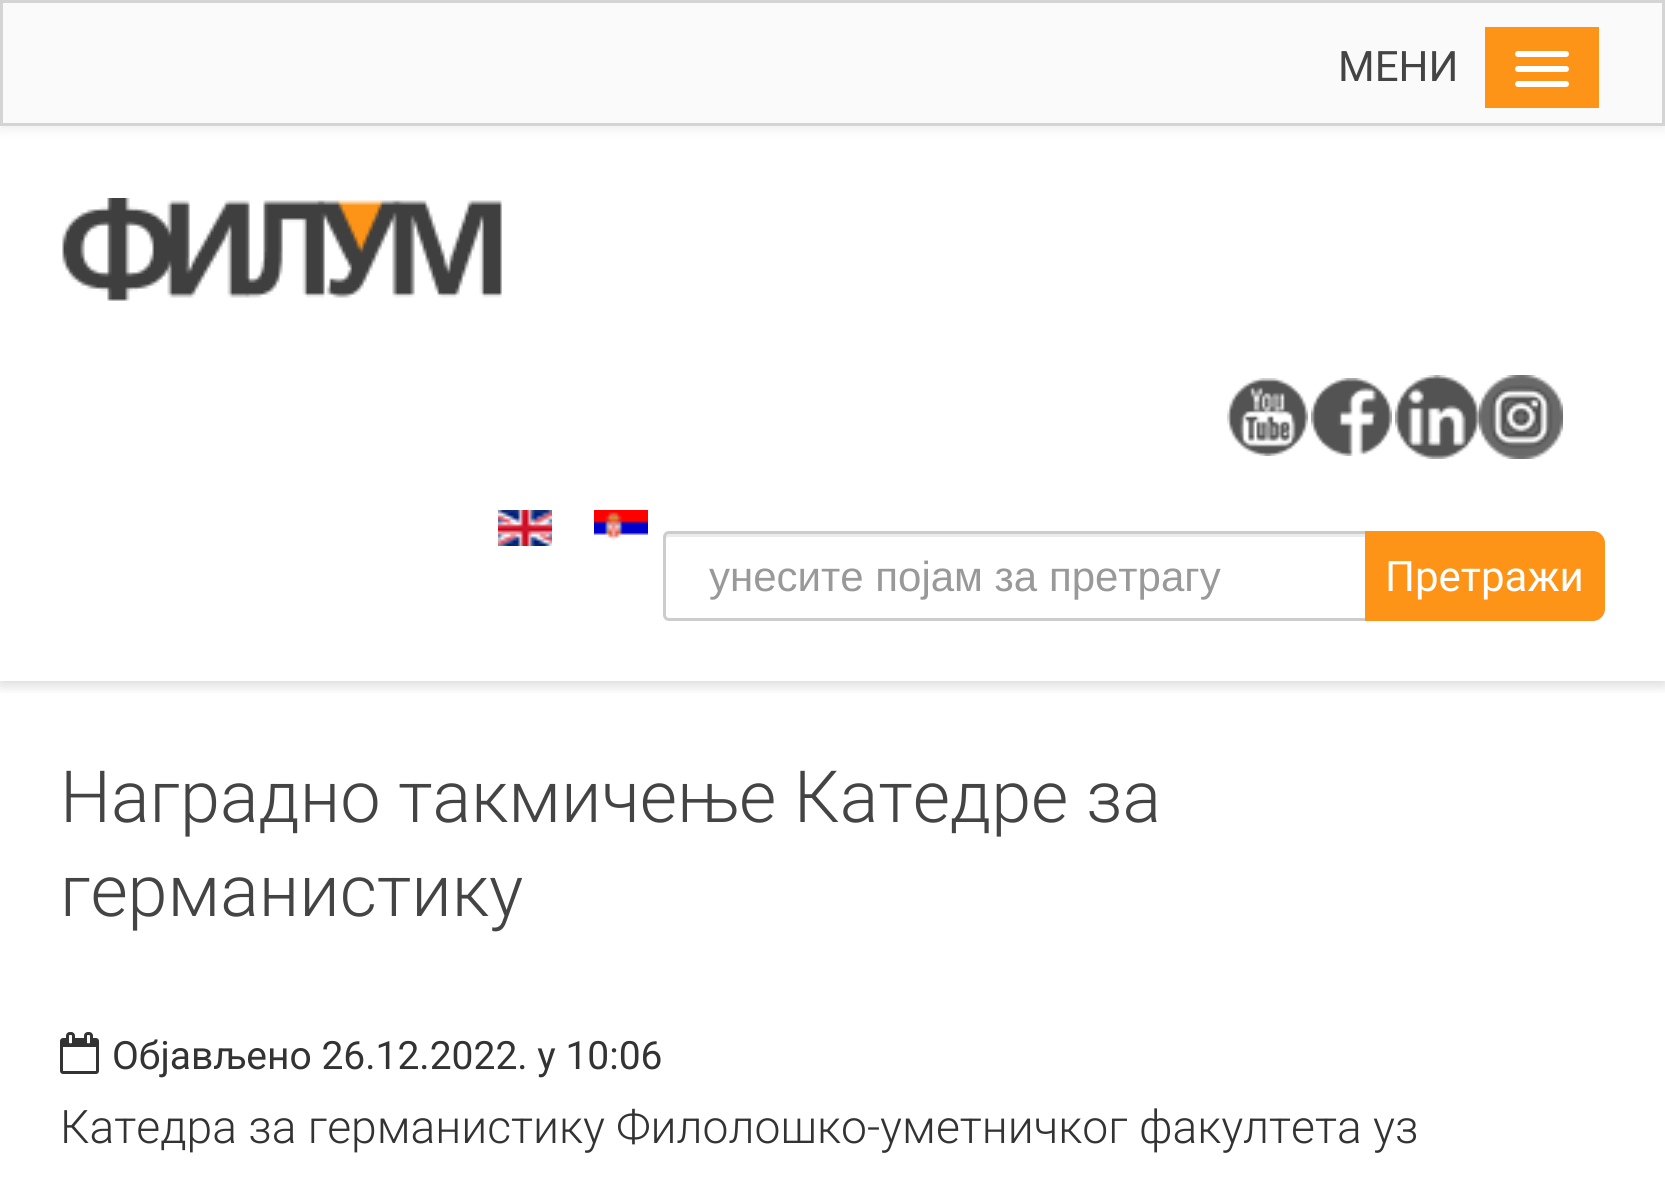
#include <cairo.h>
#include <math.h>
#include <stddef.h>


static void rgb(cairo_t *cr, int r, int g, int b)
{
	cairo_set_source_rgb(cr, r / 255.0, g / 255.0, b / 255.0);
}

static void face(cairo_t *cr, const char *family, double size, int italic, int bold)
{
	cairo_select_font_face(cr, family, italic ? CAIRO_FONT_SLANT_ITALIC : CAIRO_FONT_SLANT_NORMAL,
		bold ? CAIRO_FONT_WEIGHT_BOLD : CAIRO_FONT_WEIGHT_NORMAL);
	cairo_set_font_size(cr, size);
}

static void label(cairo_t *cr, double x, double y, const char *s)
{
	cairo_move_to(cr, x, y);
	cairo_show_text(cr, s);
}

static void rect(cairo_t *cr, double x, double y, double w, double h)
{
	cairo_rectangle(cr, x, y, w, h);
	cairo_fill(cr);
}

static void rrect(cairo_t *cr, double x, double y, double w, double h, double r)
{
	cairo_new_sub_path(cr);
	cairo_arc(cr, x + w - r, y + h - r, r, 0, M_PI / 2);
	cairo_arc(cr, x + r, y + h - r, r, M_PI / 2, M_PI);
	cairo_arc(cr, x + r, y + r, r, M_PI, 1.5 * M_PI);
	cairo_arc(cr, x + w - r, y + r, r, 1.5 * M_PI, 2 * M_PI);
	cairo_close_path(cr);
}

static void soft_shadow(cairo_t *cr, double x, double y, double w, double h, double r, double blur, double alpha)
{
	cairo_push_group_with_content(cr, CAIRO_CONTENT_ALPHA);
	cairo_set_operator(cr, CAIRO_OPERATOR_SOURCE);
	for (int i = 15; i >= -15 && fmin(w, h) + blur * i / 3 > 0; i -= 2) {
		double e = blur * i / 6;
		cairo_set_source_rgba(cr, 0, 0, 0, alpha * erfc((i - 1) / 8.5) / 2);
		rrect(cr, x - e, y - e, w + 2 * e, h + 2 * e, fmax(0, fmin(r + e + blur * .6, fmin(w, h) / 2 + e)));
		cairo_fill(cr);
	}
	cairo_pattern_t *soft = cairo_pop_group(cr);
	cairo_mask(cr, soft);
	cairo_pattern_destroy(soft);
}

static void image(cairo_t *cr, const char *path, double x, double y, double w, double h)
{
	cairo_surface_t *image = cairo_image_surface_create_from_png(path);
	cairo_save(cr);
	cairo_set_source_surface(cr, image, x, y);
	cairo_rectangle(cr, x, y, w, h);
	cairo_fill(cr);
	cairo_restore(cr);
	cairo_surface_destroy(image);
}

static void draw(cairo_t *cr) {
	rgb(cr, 255, 255, 255);
	cairo_paint(cr);
	rgb(cr, 0, 0, 0);
	soft_shadow(cr, 0, 3, 1665, 126, 0, 6, 0.07);
	cairo_save(cr);
	cairo_rectangle(cr, 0, 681, 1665, 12);
	cairo_clip(cr);
	soft_shadow(cr, 0, 129, 1665, 555, 0, 7.5, 0.17);
	cairo_restore(cr);
	rgb(cr, 250, 250, 250);
	cairo_rectangle(cr, 1.5, 1.5, 1662, 123);
	cairo_fill_preserve(cr);
	rgb(cr, 212, 212, 212);
	cairo_set_line_width(cr, 3);
	cairo_stroke(cr);
	rgb(cr, 253, 148, 23);
	rect(cr, 1485, 27, 114, 81);
	face(cr, "Roboto", 42, 0, 0);
	rgb(cr, 68, 68, 68);
	label(cr, 1338, 81, "МЕНИ");
	rgb(cr, 255, 255, 255);
	rrect(cr, 1515, 51, 54, 6, 3);
	cairo_fill(cr);
	rrect(cr, 1515, 66, 54, 6, 3);
	cairo_fill(cr);
	rrect(cr, 1515, 81, 54, 6, 3);
	cairo_fill(cr);
	image(cr, "image0.png", 62, 198, 440, 103);
	image(cr, "image1.png", 1227, 378, 81, 78);
	image(cr, "image2.png", 1311, 378, 81, 78);
	image(cr, "image3.png", 1395, 375, 84, 84);
	image(cr, "image4.png", 1479, 375, 84, 84);
	image(cr, "image5.png", 498, 510, 54, 36);
	image(cr, "image6.png", 594, 510, 54, 31);
	rgb(cr, 236, 236, 236);
	cairo_new_path(cr);
	cairo_move_to(cr, 669, 537);
	cairo_line_to(cr, 1365, 537);
	cairo_curve_to(cr, 1367, 537, 1368, 538, 1368, 540);
	cairo_line_to(cr, 1368, 537);
	cairo_curve_to(cr, 1368, 535, 1367, 534, 1365, 534);
	cairo_line_to(cr, 669, 534);
	cairo_curve_to(cr, 667, 534, 666, 535, 666, 537);
	cairo_line_to(cr, 666, 540);
	cairo_curve_to(cr, 666, 538, 667, 537, 669, 537);
	cairo_close_path(cr);
	cairo_fill(cr);
	rrect(cr, 664.5, 532.5, 705, 87, 4.5);
	rgb(cr, 204, 204, 204);
	cairo_stroke(cr);
	face(cr, "Liberation Sans", 42, 0, 0);
	rgb(cr, 153, 153, 153);
	label(cr, 709, 591, "унесите појам за претрагу");
	rgb(cr, 253, 148, 23);
	cairo_new_path(cr);
	cairo_move_to(cr, 1365, 531);
	cairo_line_to(cr, 1593, 531);
	cairo_curve_to(cr, 1599.5, 531, 1605, 536.5, 1605, 543);
	cairo_line_to(cr, 1605, 609);
	cairo_curve_to(cr, 1605, 615.5, 1599.5, 621, 1593, 621);
	cairo_line_to(cr, 1365, 621);
	cairo_close_path(cr);
	cairo_fill(cr);
	face(cr, "Roboto", 42, 0, 0);
	rgb(cr, 255, 255, 255);
	label(cr, 1385, 591, "Претражи");
	face(cr, "Roboto Light", 72, 0, 0);
	rgb(cr, 68, 68, 68);
	label(cr, 60, 822, "Наградно такмичењe Катедре за");
	label(cr, 60, 916, "германистику");
	image(cr, "image7.png", 60, 1032, 39, 42);
	face(cr, "Roboto", 39, 0, 0);
	rgb(cr, 51, 51, 51);
	label(cr, 112, 1069, "Објављено 26.12.2022. у 10:06");
	face(cr, "Roboto Light", 46.2, 0, 0);
	label(cr, 60, 1143, "Катедра за германистику Филолошко-уметничког факултета уз");
}

int main(void) {
	cairo_surface_t *surface = cairo_image_surface_create(CAIRO_FORMAT_RGB24, 1665, 1193);
	cairo_t *cr = cairo_create(surface);
	cairo_font_options_t *options = cairo_font_options_create();
	cairo_font_options_set_hint_metrics(options, CAIRO_HINT_METRICS_OFF);
	cairo_font_options_set_hint_style(options, CAIRO_HINT_STYLE_NONE);
	cairo_set_font_options(cr, options);
	cairo_set_miter_limit(cr, 4);
	draw(cr);
	cairo_surface_write_to_png(surface, "render.png");
	cairo_font_options_destroy(options);
	cairo_destroy(cr);
	cairo_surface_destroy(surface);
	return 0;
}
